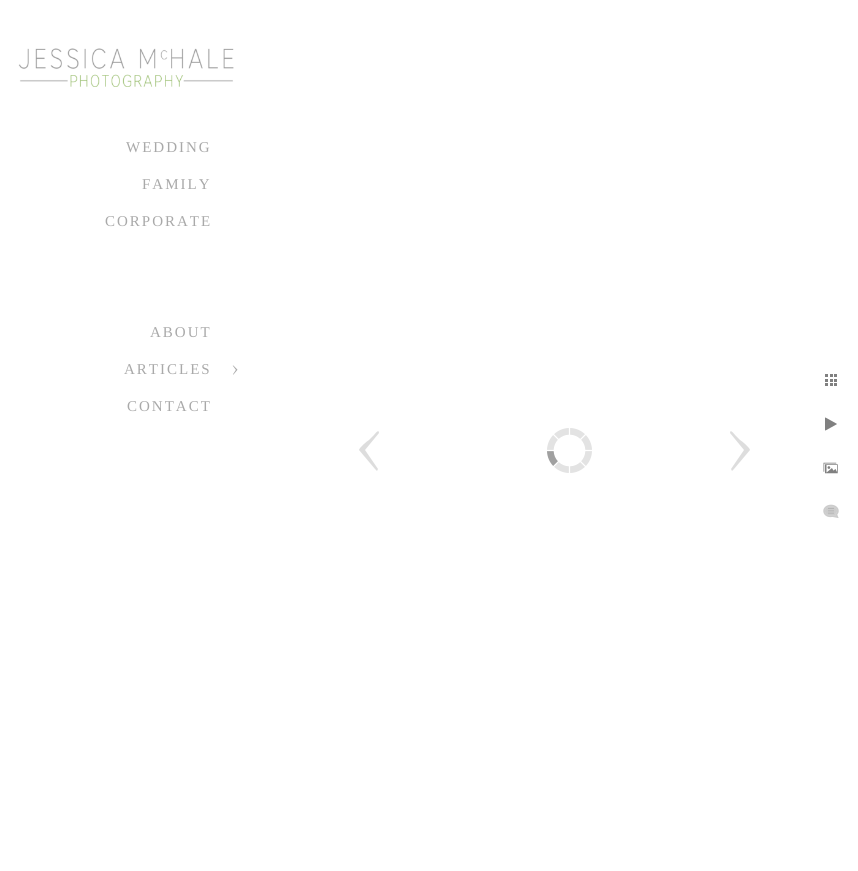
#include <cairo.h>
#include <math.h>
#include <stddef.h>


static void rgb(cairo_t *cr, int r, int g, int b)
{
	cairo_set_source_rgb(cr, r / 255.0, g / 255.0, b / 255.0);
}

static void face(cairo_t *cr, const char *family, double size, int italic, int bold)
{
	cairo_select_font_face(cr, family, italic ? CAIRO_FONT_SLANT_ITALIC : CAIRO_FONT_SLANT_NORMAL,
		bold ? CAIRO_FONT_WEIGHT_BOLD : CAIRO_FONT_WEIGHT_NORMAL);
	cairo_set_font_size(cr, size);
}

static void tracked(cairo_t *cr, double x, double y, const char *s, double letter, double word)
{
	cairo_move_to(cr, x, y);
	while (*s) {
		char ch[5] = {0};
		int n = 0;
		do ch[n++] = *s++; while ((*s & 0xC0) == 0x80);
		cairo_show_text(cr, ch);
		cairo_rel_move_to(cr, letter + word * (*ch == ' '), 0);
	}
}

static void image(cairo_t *cr, const char *path, double x, double y, double w, double h)
{
	cairo_surface_t *image = cairo_image_surface_create_from_png(path);
	cairo_save(cr);
	cairo_set_source_surface(cr, image, x, y);
	cairo_rectangle(cr, x, y, w, h);
	cairo_fill(cr);
	cairo_restore(cr);
	cairo_surface_destroy(image);
}

static void draw(cairo_t *cr) {
	rgb(cr, 255, 255, 255);
	cairo_paint(cr);
	image(cr, "image0.png", 18, 48, 216, 39);
	face(cr, "Liberation Serif", 15, 0, 0);
	rgb(cr, 169, 169, 169);
	tracked(cr, 126, 152, "WEDDING", 2, 0);
	tracked(cr, 142, 189, "FAMILY", 2, 0);
	tracked(cr, 105, 226, "CORPORATE", 2, 0);
	tracked(cr, 150, 337, "ABOUT", 2, 0);
	tracked(cr, 124, 374, "ARTICLES", 2, 0);
	image(cr, "image1.png", 232, 365, 6, 10);
	tracked(cr, 127, 411, "CONTACT", 2, 0);
	rgb(cr, 221, 221, 221);
	cairo_new_path(cr);
	cairo_move_to(cr, 359, 450);
	cairo_curve_to(cr, 359, 448, 367, 441, 369, 440);
	cairo_line_to(cr, 374, 435);
	cairo_curve_to(cr, 374, 435, 379, 428, 379, 433);
	cairo_line_to(cr, 365, 450);
	cairo_line_to(cr, 378, 469);
	cairo_line_to(cr, 377, 471);
	cairo_line_to(cr, 375, 469);
	cairo_close_path(cr);
	cairo_fill(cr);
	image(cr, "image2.png", 547, 428, 45, 45);
	cairo_new_path(cr);
	cairo_move_to(cr, 750, 450);
	cairo_curve_to(cr, 750, 448, 742, 441, 740, 440);
	cairo_line_to(cr, 735, 435);
	cairo_curve_to(cr, 735, 435, 730, 428, 730, 433);
	cairo_line_to(cr, 744, 450);
	cairo_line_to(cr, 731, 469);
	cairo_line_to(cr, 732, 471);
	cairo_line_to(cr, 734, 469);
	cairo_close_path(cr);
	cairo_fill(cr);
	image(cr, "image3.png", 825, 374, 12, 12);
	image(cr, "image4.png", 825, 417, 12, 14);
	image(cr, "image5.png", 823, 462, 15, 12);
	image(cr, "image6.png", 823, 504, 16, 14);
}

int main(void) {
	cairo_surface_t *surface = cairo_image_surface_create(CAIRO_FORMAT_RGB24, 858, 871);
	cairo_t *cr = cairo_create(surface);
	cairo_font_options_t *options = cairo_font_options_create();
	cairo_font_options_set_hint_metrics(options, CAIRO_HINT_METRICS_OFF);
	cairo_font_options_set_hint_style(options, CAIRO_HINT_STYLE_NONE);
	cairo_set_font_options(cr, options);
	cairo_set_miter_limit(cr, 4);
	draw(cr);
	cairo_surface_write_to_png(surface, "render.png");
	cairo_font_options_destroy(options);
	cairo_destroy(cr);
	cairo_surface_destroy(surface);
	return 0;
}
